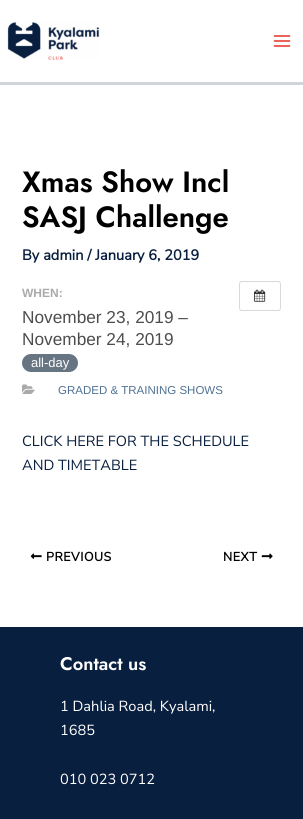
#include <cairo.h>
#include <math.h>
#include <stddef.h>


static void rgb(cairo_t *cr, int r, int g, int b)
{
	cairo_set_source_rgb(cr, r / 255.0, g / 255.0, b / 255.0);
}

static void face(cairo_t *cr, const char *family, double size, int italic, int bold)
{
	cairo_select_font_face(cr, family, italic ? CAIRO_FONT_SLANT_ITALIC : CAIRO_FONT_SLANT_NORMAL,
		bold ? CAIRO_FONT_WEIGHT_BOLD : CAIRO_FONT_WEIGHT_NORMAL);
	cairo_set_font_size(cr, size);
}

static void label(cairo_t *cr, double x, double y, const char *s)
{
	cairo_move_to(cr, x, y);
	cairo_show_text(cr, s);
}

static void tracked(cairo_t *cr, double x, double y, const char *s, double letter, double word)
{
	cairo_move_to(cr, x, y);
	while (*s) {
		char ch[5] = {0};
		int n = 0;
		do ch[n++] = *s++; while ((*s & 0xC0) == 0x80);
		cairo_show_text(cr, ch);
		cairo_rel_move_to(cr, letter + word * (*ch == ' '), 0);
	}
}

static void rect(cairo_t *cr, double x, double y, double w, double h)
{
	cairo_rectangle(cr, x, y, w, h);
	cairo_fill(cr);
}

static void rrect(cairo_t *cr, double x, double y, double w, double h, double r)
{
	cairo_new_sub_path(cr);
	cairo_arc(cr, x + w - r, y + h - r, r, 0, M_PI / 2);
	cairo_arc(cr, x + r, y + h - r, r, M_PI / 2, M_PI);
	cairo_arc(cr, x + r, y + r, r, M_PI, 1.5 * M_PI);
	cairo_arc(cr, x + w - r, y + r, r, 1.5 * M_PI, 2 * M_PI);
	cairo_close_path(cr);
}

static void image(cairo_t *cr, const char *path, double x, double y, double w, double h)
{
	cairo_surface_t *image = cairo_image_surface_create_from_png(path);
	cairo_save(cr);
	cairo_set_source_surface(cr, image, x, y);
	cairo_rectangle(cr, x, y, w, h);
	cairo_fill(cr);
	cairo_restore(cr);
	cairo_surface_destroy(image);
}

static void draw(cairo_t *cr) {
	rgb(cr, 255, 255, 255);
	cairo_paint(cr);
	rgb(cr, 209, 213, 219);
	rect(cr, 0, 82, 303, 3);
	image(cr, "image0.png", 7, 22, 93, 38);
	image(cr, "image1.png", 273, 35, 18, 12);
	face(cr, "Jost SemiBold", 29.25, 0, 0);
	rgb(cr, 0, 0, 0);
	label(cr, 22, 192, "Xmas Show Incl");
	label(cr, 22, 227, "SASJ Challenge");
	face(cr, "Nunito Sans", 14.6, 0, 1);
	rgb(cr, 9, 31, 64);
	label(cr, 22, 260, "By admin / January 6, 2019");
	face(cr, "Liberation Sans", 12, 0, 1);
	rgb(cr, 170, 170, 170);
	label(cr, 22, 297, "WHEN:");
	face(cr, "Liberation Sans", 17.25, 0, 0);
	rgb(cr, 77, 77, 77);
	label(cr, 22, 323, "November 23, 2019 –");
	label(cr, 22, 345, "November 24, 2019");
	rgb(cr, 103, 117, 131);
	rrect(cr, 22, 354, 56, 18, 9);
	cairo_fill(cr);
	face(cr, "Liberation Sans", 13, 0, 0);
	rgb(cr, 255, 254, 254);
	label(cr, 31, 367, "all-day");
	image(cr, "image2.png", 22, 384, 13, 10);
	face(cr, "Liberation Sans", 11.5, 0, 0);
	rgb(cr, 80, 114, 149);
	label(cr, 58, 394, "GRADED & TRAINING SHOWS");
	rrect(cr, 239.5, 281.5, 41, 29, 2.5);
	rgb(cr, 217, 217, 217);
	cairo_set_line_width(cr, 1);
	cairo_stroke(cr);
	image(cr, "image3.png", 254, 289, 12, 13);
	face(cr, "Nunito Sans ExtraLight", 14.6, 0, 0);
	rgb(cr, 9, 31, 64);
	label(cr, 22, 446, "CLICK HERE FOR THE SCHEDULE");
	label(cr, 22, 470, "AND TIMETABLE");
	image(cr, "image4.png", 30, 553, 12, 6);
	face(cr, "Nunito Sans", 12.5, 0, 1);
	rgb(cr, 0, 0, 0);
	tracked(cr, 46, 561, "PREVIOUS", 0.5, 0);
	tracked(cr, 223, 561, "NEXT", 0.5, 0);
	image(cr, "image5.png", 261, 553, 12, 6);
	rgb(cr, 8, 31, 63);
	rect(cr, 0, 627, 303, 192);
	face(cr, "Jost SemiBold", 18.25, 0, 0);
	rgb(cr, 255, 254, 254);
	label(cr, 60, 670, "Contact us");
	face(cr, "Nunito Sans ExtraLight", 14.6, 0, 0);
	label(cr, 60, 711, "1 Dahlia Road, Kyalami,");
	label(cr, 60, 735, "1685");
	label(cr, 60, 784, "010 023 0712");
}

int main(void) {
	cairo_surface_t *surface = cairo_image_surface_create(CAIRO_FORMAT_RGB24, 303, 819);
	cairo_t *cr = cairo_create(surface);
	cairo_font_options_t *options = cairo_font_options_create();
	cairo_font_options_set_hint_metrics(options, CAIRO_HINT_METRICS_OFF);
	cairo_font_options_set_hint_style(options, CAIRO_HINT_STYLE_NONE);
	cairo_set_font_options(cr, options);
	cairo_set_miter_limit(cr, 4);
	draw(cr);
	cairo_surface_write_to_png(surface, "render.png");
	cairo_font_options_destroy(options);
	cairo_destroy(cr);
	cairo_surface_destroy(surface);
	return 0;
}
